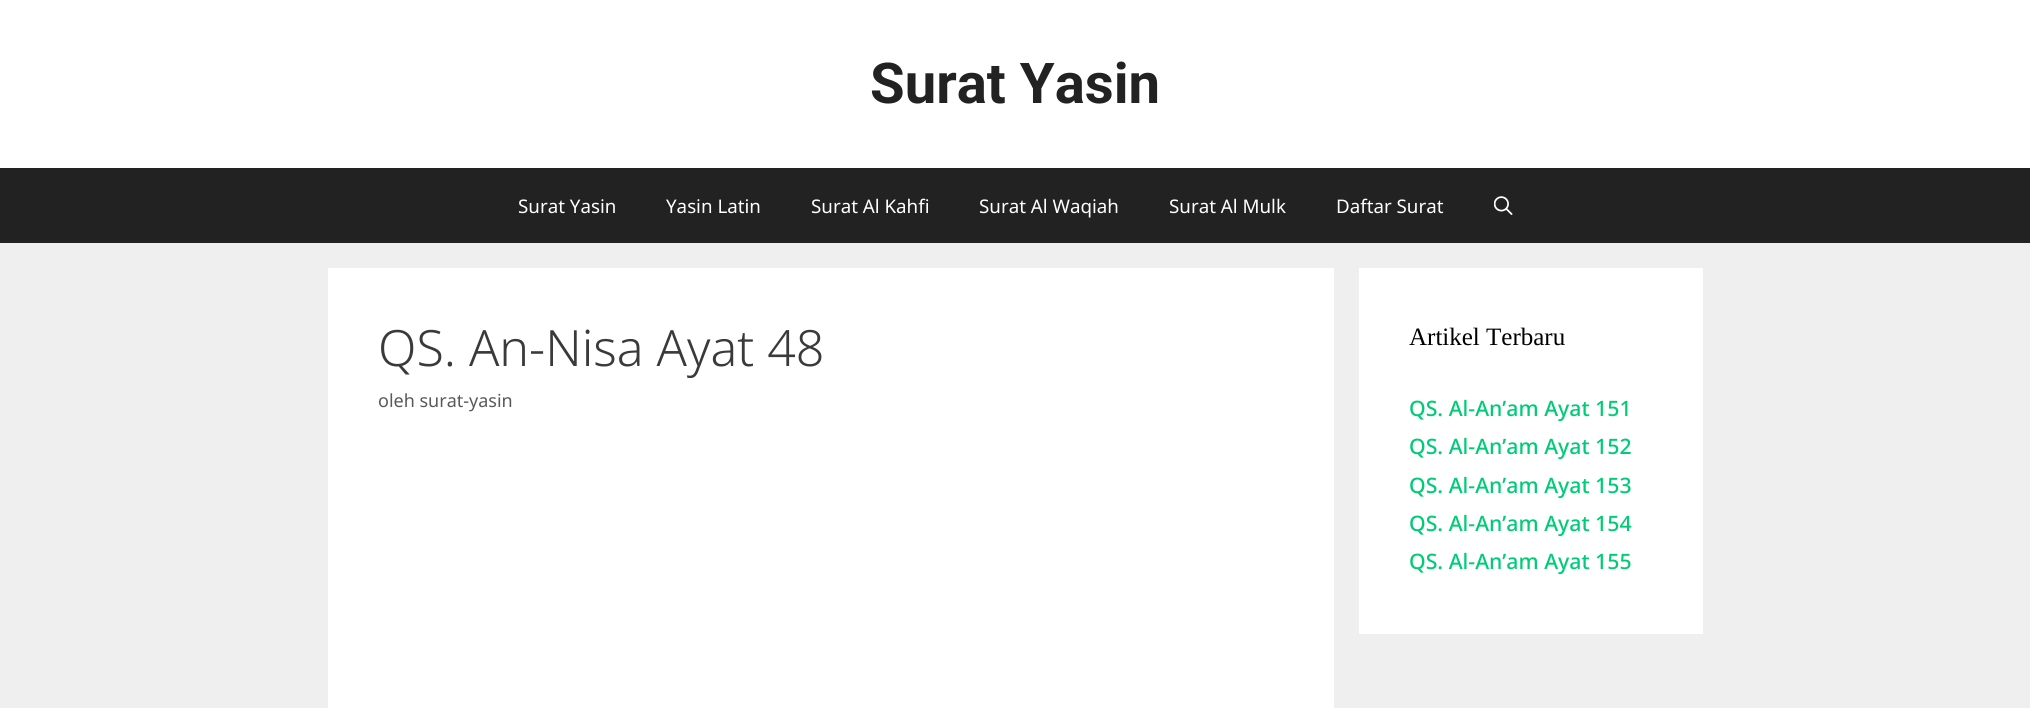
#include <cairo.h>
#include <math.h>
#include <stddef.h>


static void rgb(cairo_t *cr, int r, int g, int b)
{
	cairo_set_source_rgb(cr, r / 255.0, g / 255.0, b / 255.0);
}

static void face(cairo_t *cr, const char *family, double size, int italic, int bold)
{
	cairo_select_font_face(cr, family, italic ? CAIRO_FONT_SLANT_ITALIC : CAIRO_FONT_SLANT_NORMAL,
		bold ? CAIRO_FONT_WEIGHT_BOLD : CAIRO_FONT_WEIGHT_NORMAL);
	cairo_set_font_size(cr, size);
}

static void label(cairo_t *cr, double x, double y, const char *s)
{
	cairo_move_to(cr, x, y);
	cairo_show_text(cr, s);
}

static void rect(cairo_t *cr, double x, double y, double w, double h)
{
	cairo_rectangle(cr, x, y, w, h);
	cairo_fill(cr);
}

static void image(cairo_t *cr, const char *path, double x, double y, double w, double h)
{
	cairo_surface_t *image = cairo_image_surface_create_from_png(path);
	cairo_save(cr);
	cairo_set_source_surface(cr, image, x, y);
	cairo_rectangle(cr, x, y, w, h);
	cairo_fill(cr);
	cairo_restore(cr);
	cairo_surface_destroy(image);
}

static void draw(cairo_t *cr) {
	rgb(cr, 239, 239, 239);
	cairo_paint(cr);
	rgb(cr, 255, 255, 255);
	rect(cr, 0, 0, 2030, 168);
	face(cr, "Roboto", 56.25, 0, 1);
	rgb(cr, 34, 34, 34);
	label(cr, 870, 103, "Surat Yasin");
	rect(cr, 0, 168, 2030, 75);
	face(cr, "Noto Sans", 18.75, 0, 0);
	rgb(cr, 255, 255, 255);
	label(cr, 518, 213, "Surat Yasin");
	label(cr, 666, 213, "Yasin Latin");
	label(cr, 811, 213, "Surat Al Kahfi");
	label(cr, 979, 213, "Surat Al Waqiah");
	label(cr, 1169, 213, "Surat Al Mulk");
	label(cr, 1336, 213, "Daftar Surat");
	image(cr, "image0.png", 1494, 196, 19, 19);
	rect(cr, 328, 268, 1006, 440);
	face(cr, "Noto Sans Light", 50, 0, 0);
	rgb(cr, 58, 58, 58);
	label(cr, 378, 366, "QS. An-Nisa Ayat 48");
	face(cr, "Noto Sans", 18, 0, 0);
	rgb(cr, 89, 89, 89);
	label(cr, 378, 407, "oleh surat-yasin");
	rgb(cr, 255, 255, 255);
	rect(cr, 1359, 268, 344, 366);
	face(cr, "Liberation Serif", 25, 0, 0);
	rgb(cr, 0, 0, 0);
	label(cr, 1409, 345, "Artikel Terbaru");
	face(cr, "Noto Sans Medium", 21.25, 0, 0);
	rgb(cr, 0, 204, 119);
	label(cr, 1409, 416, "QS. Al-An’am Ayat 151");
	label(cr, 1409, 454, "QS. Al-An’am Ayat 152");
	label(cr, 1409, 493, "QS. Al-An’am Ayat 153");
	label(cr, 1409, 531, "QS. Al-An’am Ayat 154");
	label(cr, 1409, 569, "QS. Al-An’am Ayat 155");
}

int main(void) {
	cairo_surface_t *surface = cairo_image_surface_create(CAIRO_FORMAT_RGB24, 2030, 708);
	cairo_t *cr = cairo_create(surface);
	cairo_font_options_t *options = cairo_font_options_create();
	cairo_font_options_set_hint_metrics(options, CAIRO_HINT_METRICS_OFF);
	cairo_font_options_set_hint_style(options, CAIRO_HINT_STYLE_NONE);
	cairo_set_font_options(cr, options);
	cairo_set_miter_limit(cr, 4);
	draw(cr);
	cairo_surface_write_to_png(surface, "render.png");
	cairo_font_options_destroy(options);
	cairo_destroy(cr);
	cairo_surface_destroy(surface);
	return 0;
}
